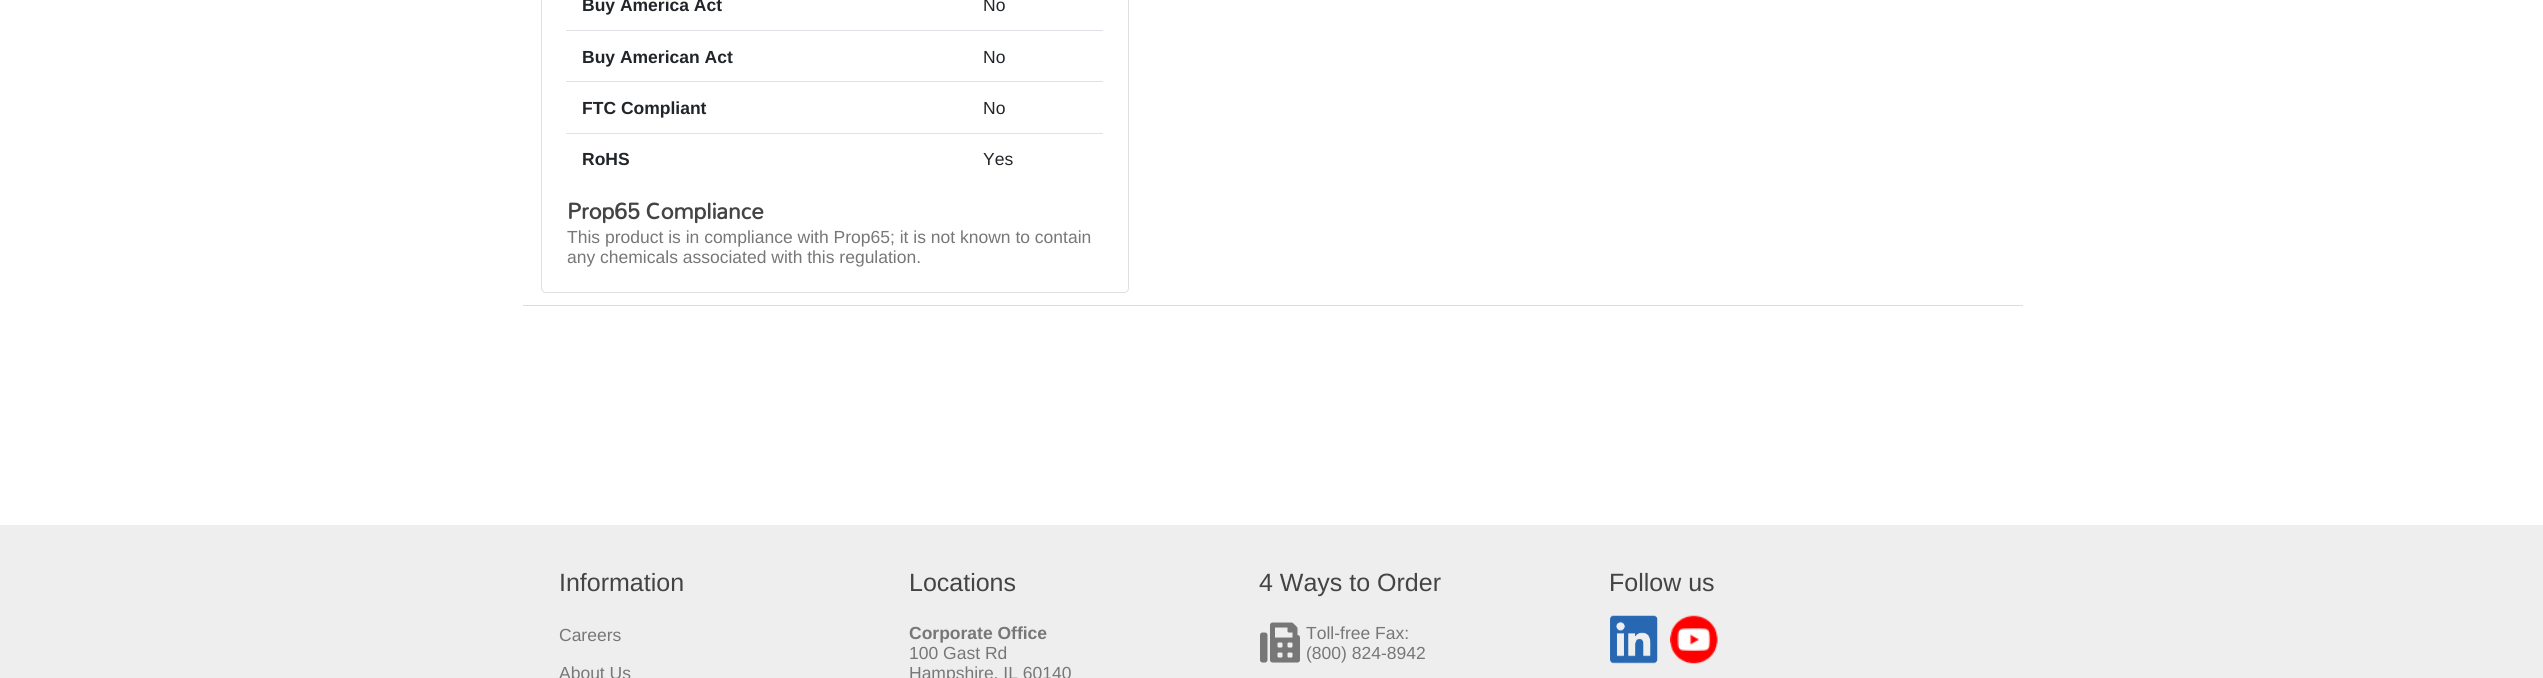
#include <cairo.h>
#include <math.h>
#include <stddef.h>


static void rgb(cairo_t *cr, int r, int g, int b)
{
	cairo_set_source_rgb(cr, r / 255.0, g / 255.0, b / 255.0);
}

static void face(cairo_t *cr, const char *family, double size, int italic, int bold)
{
	cairo_select_font_face(cr, family, italic ? CAIRO_FONT_SLANT_ITALIC : CAIRO_FONT_SLANT_NORMAL,
		bold ? CAIRO_FONT_WEIGHT_BOLD : CAIRO_FONT_WEIGHT_NORMAL);
	cairo_set_font_size(cr, size);
}

static void label(cairo_t *cr, double x, double y, const char *s)
{
	cairo_move_to(cr, x, y);
	cairo_show_text(cr, s);
}

static void rect(cairo_t *cr, double x, double y, double w, double h)
{
	cairo_rectangle(cr, x, y, w, h);
	cairo_fill(cr);
}

static void rrect(cairo_t *cr, double x, double y, double w, double h, double r)
{
	cairo_new_sub_path(cr);
	cairo_arc(cr, x + w - r, y + h - r, r, 0, M_PI / 2);
	cairo_arc(cr, x + r, y + h - r, r, M_PI / 2, M_PI);
	cairo_arc(cr, x + r, y + r, r, M_PI, 1.5 * M_PI);
	cairo_arc(cr, x + w - r, y + r, r, 1.5 * M_PI, 2 * M_PI);
	cairo_close_path(cr);
}

static void image(cairo_t *cr, const char *path, double x, double y, double w, double h)
{
	cairo_surface_t *image = cairo_image_surface_create_from_png(path);
	cairo_save(cr);
	cairo_set_source_surface(cr, image, x, y);
	cairo_rectangle(cr, x, y, w, h);
	cairo_fill(cr);
	cairo_restore(cr);
	cairo_surface_destroy(image);
}

static void draw(cairo_t *cr) {
	rgb(cr, 255, 255, 255);
	cairo_paint(cr);
	rgb(cr, 221, 221, 221);
	rect(cr, 523, 305, 1500, 1);
	rrect(cr, 541.5, -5.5, 587, 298, 4.5);
	rgb(cr, 223, 223, 223);
	cairo_set_line_width(cr, 1);
	cairo_stroke(cr);
	face(cr, "Liberation Sans", 17.5, 0, 1);
	rgb(cr, 33, 37, 41);
	label(cr, 582, 11, "Buy America Act");
	face(cr, "Liberation Sans", 17.5, 0, 0);
	label(cr, 983, 11, "No");
	face(cr, "Liberation Sans", 17.5, 0, 1);
	label(cr, 582, 63, "Buy American Act");
	rgb(cr, 222, 226, 230);
	rect(cr, 566, 30, 537, 1);
	face(cr, "Liberation Sans", 17.5, 0, 0);
	rgb(cr, 33, 37, 41);
	label(cr, 983, 63, "No");
	face(cr, "Liberation Sans", 17.5, 0, 1);
	label(cr, 582, 114, "FTC Compliant");
	rgb(cr, 222, 226, 230);
	rect(cr, 566, 81, 537, 1);
	face(cr, "Liberation Sans", 17.5, 0, 0);
	rgb(cr, 33, 37, 41);
	label(cr, 983, 114, "No");
	face(cr, "Liberation Sans", 17.5, 0, 1);
	label(cr, 582, 165, "RoHS");
	rgb(cr, 222, 226, 230);
	rect(cr, 566, 133, 537, 1);
	face(cr, "Liberation Sans", 17.5, 0, 0);
	rgb(cr, 33, 37, 41);
	label(cr, 983, 165, "Yes");
	face(cr, "Mallanna", 25, 0, 1);
	rgb(cr, 68, 68, 68);
	label(cr, 567, 219, "Prop65 Compliance");
	face(cr, "Liberation Sans", 17.5, 0, 0);
	rgb(cr, 119, 119, 119);
	label(cr, 567, 243, "This product is in compliance with Prop65; it is not known to contain");
	label(cr, 567, 263, "any chemicals associated with this regulation.");
	rgb(cr, 238, 238, 238);
	rect(cr, 0, 525, 2543, 153);
	face(cr, "Liberation Sans", 25, 0, 0);
	rgb(cr, 68, 68, 68);
	label(cr, 559, 591, "Information");
	face(cr, "Liberation Sans", 17.5, 0, 0);
	rgb(cr, 119, 119, 119);
	label(cr, 559, 641, "Careers");
	label(cr, 559, 679, "About Us");
	face(cr, "Liberation Sans", 25, 0, 0);
	rgb(cr, 68, 68, 68);
	label(cr, 909, 591, "Locations");
	face(cr, "Liberation Sans", 17.5, 0, 1);
	rgb(cr, 119, 119, 119);
	label(cr, 909, 639, "Corporate Office");
	face(cr, "Liberation Sans", 17.5, 0, 0);
	label(cr, 909, 659, "100 Gast Rd");
	label(cr, 909, 679, "Hampshire, IL 60140");
	face(cr, "Liberation Sans", 25, 0, 0);
	rgb(cr, 68, 68, 68);
	label(cr, 1259, 591, "4 Ways to Order");
	image(cr, "image0.png", 1260, 622, 40, 41);
	face(cr, "Liberation Sans", 17.5, 0, 0);
	rgb(cr, 119, 119, 119);
	label(cr, 1306, 639, "Toll-free Fax:");
	label(cr, 1306, 659, "(800) 824-8942");
	face(cr, "Liberation Sans", 25, 0, 0);
	rgb(cr, 68, 68, 68);
	label(cr, 1609, 591, "Follow us");
	image(cr, "image1.png", 1610, 615, 48, 49);
	image(cr, "image2.png", 1670, 615, 48, 49);
}

int main(void) {
	cairo_surface_t *surface = cairo_image_surface_create(CAIRO_FORMAT_RGB24, 2543, 678);
	cairo_t *cr = cairo_create(surface);
	cairo_font_options_t *options = cairo_font_options_create();
	cairo_font_options_set_hint_metrics(options, CAIRO_HINT_METRICS_OFF);
	cairo_font_options_set_hint_style(options, CAIRO_HINT_STYLE_NONE);
	cairo_set_font_options(cr, options);
	cairo_set_miter_limit(cr, 4);
	draw(cr);
	cairo_surface_write_to_png(surface, "render.png");
	cairo_font_options_destroy(options);
	cairo_destroy(cr);
	cairo_surface_destroy(surface);
	return 0;
}
